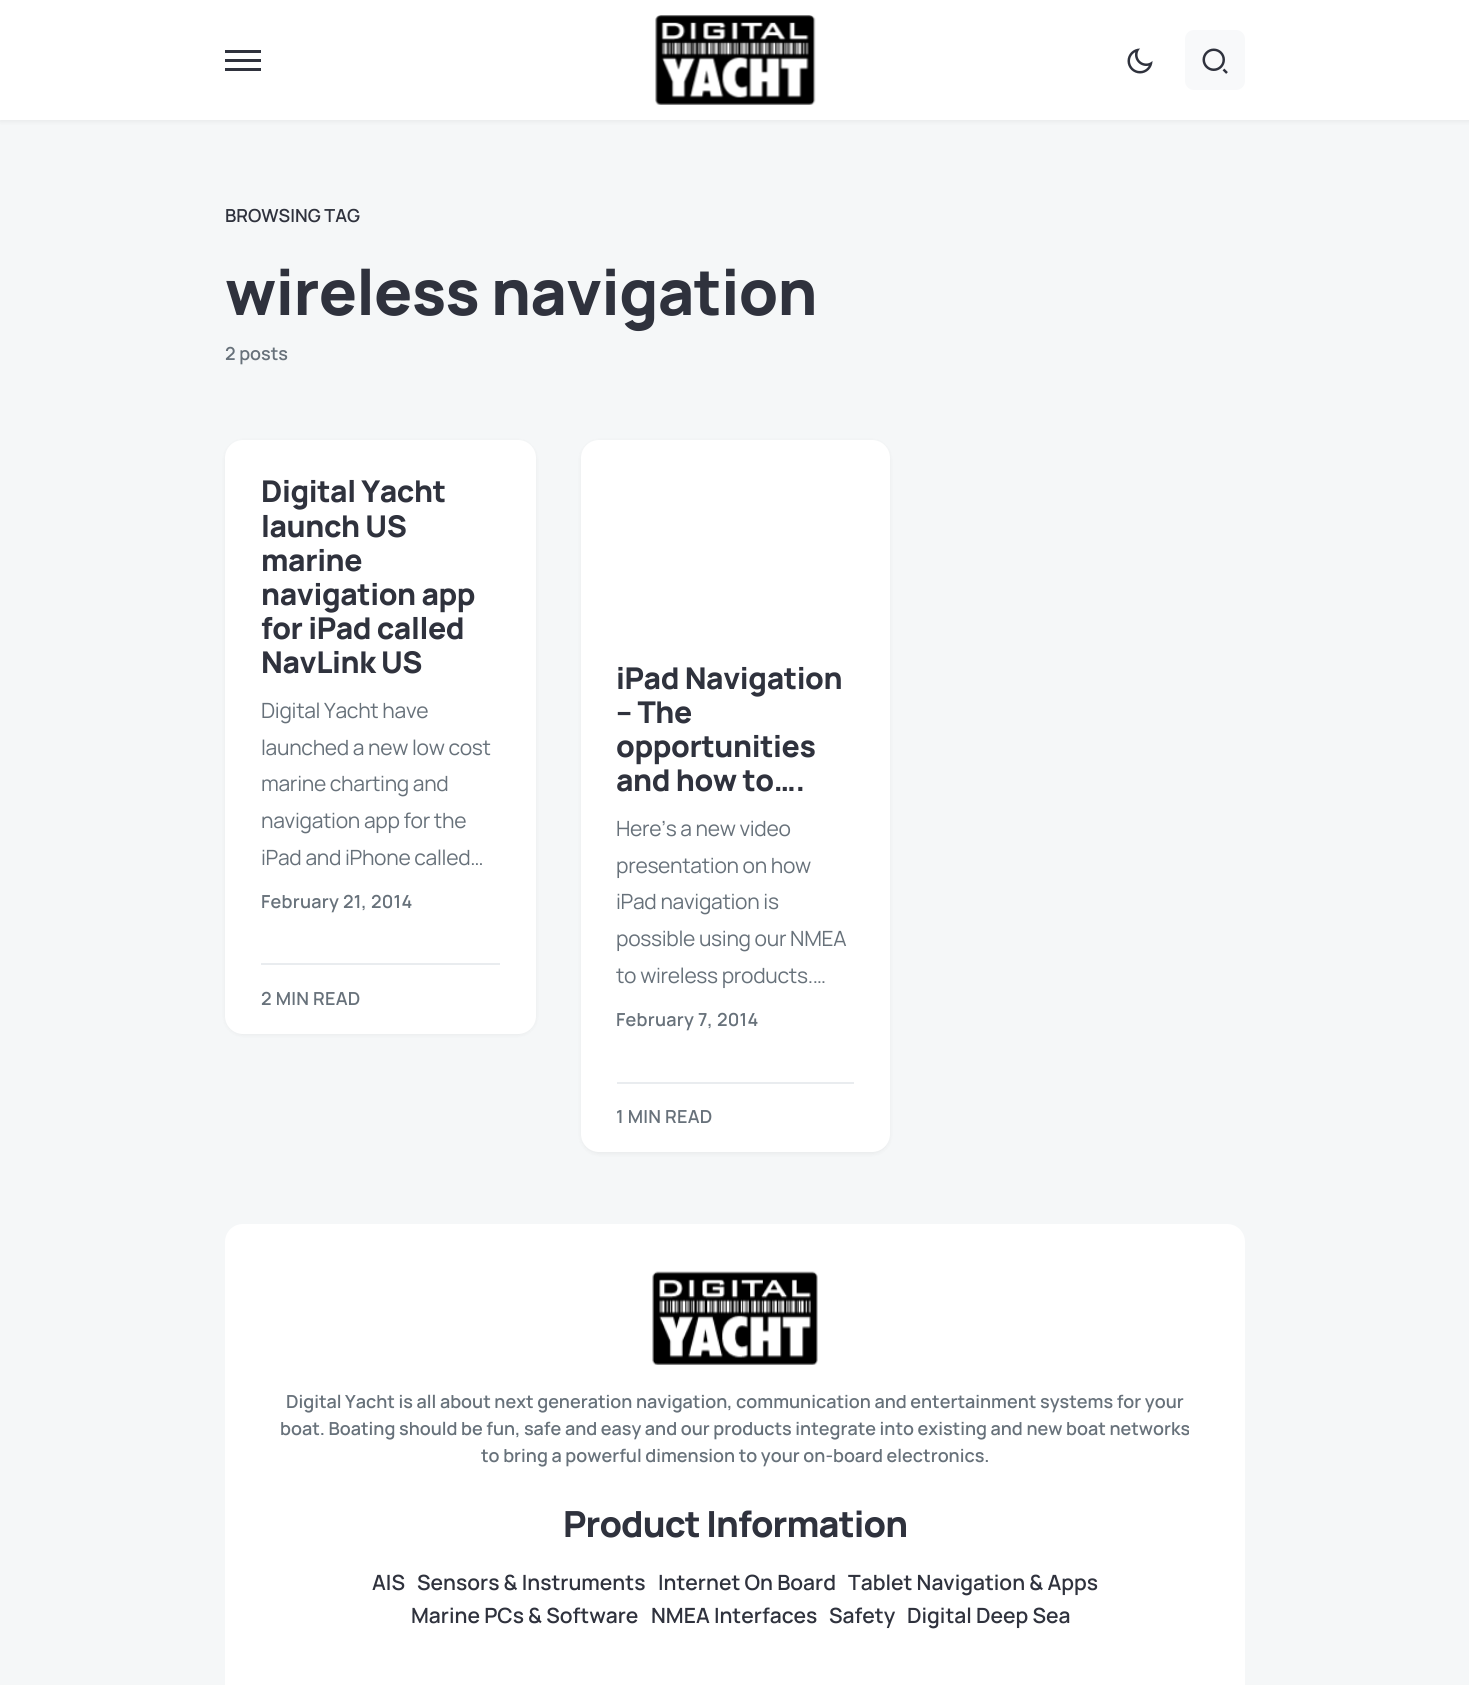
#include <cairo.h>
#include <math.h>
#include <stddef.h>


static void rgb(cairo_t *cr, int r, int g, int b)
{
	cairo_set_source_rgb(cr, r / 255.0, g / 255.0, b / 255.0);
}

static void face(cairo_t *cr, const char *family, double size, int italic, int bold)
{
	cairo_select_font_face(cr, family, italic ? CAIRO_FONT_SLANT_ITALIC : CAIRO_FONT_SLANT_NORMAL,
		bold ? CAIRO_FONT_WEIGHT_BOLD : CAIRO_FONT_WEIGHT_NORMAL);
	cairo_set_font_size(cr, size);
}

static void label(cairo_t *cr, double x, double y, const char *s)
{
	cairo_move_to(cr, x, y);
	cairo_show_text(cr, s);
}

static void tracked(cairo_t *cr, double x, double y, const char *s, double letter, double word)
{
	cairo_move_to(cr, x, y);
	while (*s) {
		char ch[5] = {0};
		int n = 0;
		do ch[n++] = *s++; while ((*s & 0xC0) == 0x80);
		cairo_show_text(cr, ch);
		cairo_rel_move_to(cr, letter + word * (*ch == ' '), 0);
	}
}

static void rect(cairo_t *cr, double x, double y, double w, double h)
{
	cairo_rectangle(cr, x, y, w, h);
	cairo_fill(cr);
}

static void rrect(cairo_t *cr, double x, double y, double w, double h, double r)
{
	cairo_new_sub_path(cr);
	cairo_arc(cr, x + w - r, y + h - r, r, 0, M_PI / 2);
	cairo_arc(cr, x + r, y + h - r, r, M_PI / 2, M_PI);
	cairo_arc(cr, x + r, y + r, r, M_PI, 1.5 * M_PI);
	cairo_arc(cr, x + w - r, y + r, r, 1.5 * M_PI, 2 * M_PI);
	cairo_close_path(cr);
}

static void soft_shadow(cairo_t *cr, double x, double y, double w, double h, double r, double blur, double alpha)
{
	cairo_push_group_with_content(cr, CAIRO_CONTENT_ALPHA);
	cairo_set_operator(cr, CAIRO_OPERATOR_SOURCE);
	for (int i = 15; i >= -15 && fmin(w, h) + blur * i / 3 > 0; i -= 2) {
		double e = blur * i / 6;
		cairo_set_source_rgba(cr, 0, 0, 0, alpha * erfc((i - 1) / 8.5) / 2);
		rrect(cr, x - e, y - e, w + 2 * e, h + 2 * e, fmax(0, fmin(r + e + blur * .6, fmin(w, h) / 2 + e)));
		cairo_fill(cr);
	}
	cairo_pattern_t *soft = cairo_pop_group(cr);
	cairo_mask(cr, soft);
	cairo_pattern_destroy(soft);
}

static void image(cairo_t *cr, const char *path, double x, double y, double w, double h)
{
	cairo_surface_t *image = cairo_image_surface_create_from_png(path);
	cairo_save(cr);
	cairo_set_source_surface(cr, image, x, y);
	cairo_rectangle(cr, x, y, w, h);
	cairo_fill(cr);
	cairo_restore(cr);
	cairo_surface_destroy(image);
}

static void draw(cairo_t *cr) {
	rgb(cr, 245, 247, 248);
	cairo_paint(cr);
	rgb(cr, 0, 0, 0);
	soft_shadow(cr, 0, 2, 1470, 120, 0, 2, 0.05);
	rgb(cr, 255, 255, 255);
	rect(cr, 0, 0, 1469, 120);
	rgb(cr, 47, 50, 61);
	rect(cr, 225, 50, 36, 3);
	rect(cr, 225, 59, 36, 3);
	rect(cr, 225, 68, 36, 3);
	image(cr, "image0.png", 655, 15, 161, 90);
	image(cr, "image1.png", 1127, 48, 26, 26);
	rgb(cr, 248, 249, 250);
	rrect(cr, 1185, 30, 60, 60, 9);
	cairo_fill(cr);
	image(cr, "image2.png", 1202, 48, 26, 26);
	face(cr, "Manrope SemiBold", 18, 0, 0);
	rgb(cr, 47, 50, 61);
	label(cr, 225, 222, "BROWSING TAG");
	face(cr, "Manrope ExtraBold", 63, 0, 0);
	tracked(cr, 225, 315, "wireless navigation", -0.75, 0);
	face(cr, "Manrope SemiBold", 18, 0, 0);
	rgb(cr, 103, 113, 122);
	label(cr, 225, 360, "2 posts");
	rgb(cr, 0, 0, 0);
	soft_shadow(cr, 225, 441, 311, 594, 18, 2, 0.05);
	rgb(cr, 255, 255, 255);
	rrect(cr, 225, 440, 311, 594, 18);
	cairo_fill(cr);
	face(cr, "Manrope ExtraBold", 30, 0, 0);
	rgb(cr, 47, 50, 61);
	tracked(cr, 261, 502, "Digital Yacht", -0.4, 0);
	tracked(cr, 261, 537, "launch US", -0.4, 0);
	tracked(cr, 261, 571, "marine", -0.4, 0);
	tracked(cr, 261, 605, "navigation app", -0.4, 0);
	tracked(cr, 261, 639, "for iPad called", -0.4, 0);
	tracked(cr, 261, 673, "NavLink US", -0.4, 0);
	face(cr, "Manrope", 21, 0, 0);
	rgb(cr, 103, 113, 122);
	tracked(cr, 261, 718, "Digital Yacht have", -0.3, 0);
	tracked(cr, 261, 755, "launched a new low cost", -0.3, 0);
	tracked(cr, 261, 791, "marine charting and", -0.3, 0);
	tracked(cr, 261, 828, "navigation app for the", -0.3, 0);
	tracked(cr, 261, 865, "iPad and iPhone called…", -0.3, 0);
	face(cr, "Manrope SemiBold", 18, 0, 0);
	tracked(cr, 261, 908, "February 21, 2014", 0.25, 0);
	rgb(cr, 233, 236, 239);
	rect(cr, 261, 963, 239, 2);
	rgb(cr, 103, 113, 122);
	tracked(cr, 261, 1005, "2 MIN READ", 0.25, 0);
	rgb(cr, 0, 0, 0);
	soft_shadow(cr, 581, 441, 309, 713, 18, 2, 0.05);
	rgb(cr, 255, 255, 255);
	rrect(cr, 581, 440, 309, 712, 18);
	cairo_fill(cr);
	face(cr, "Manrope ExtraBold", 30, 0, 0);
	rgb(cr, 47, 50, 61);
	tracked(cr, 616, 689, "iPad Navigation", -0.4, 0);
	tracked(cr, 616, 723, "– The", -0.4, 0);
	tracked(cr, 616, 757, "opportunities", -0.4, 0);
	tracked(cr, 616, 791, "and how to….", -0.4, 0);
	face(cr, "Manrope", 21, 0, 0);
	rgb(cr, 103, 113, 122);
	tracked(cr, 616, 836, "Here’s a new video", -0.3, 0);
	tracked(cr, 616, 873, "presentation on how", -0.3, 0);
	tracked(cr, 616, 909, "iPad navigation is", -0.3, 0);
	tracked(cr, 616, 946, "possible using our NMEA", -0.3, 0);
	tracked(cr, 616, 983, "to wireless products.…", -0.3, 0);
	face(cr, "Manrope SemiBold", 18, 0, 0);
	tracked(cr, 616, 1026, "February 7, 2014", 0.25, 0);
	rgb(cr, 233, 236, 239);
	rect(cr, 617, 1082, 237, 2);
	rgb(cr, 103, 113, 122);
	tracked(cr, 616, 1123, "1 MIN READ", 0.25, 0);
	rgb(cr, 255, 255, 255);
	cairo_new_path(cr);
	cairo_move_to(cr, 243, 1224);
	cairo_line_to(cr, 1227, 1224);
	cairo_curve_to(cr, 1237, 1224, 1245, 1232, 1245, 1242);
	cairo_line_to(cr, 1245, 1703);
	cairo_line_to(cr, 225, 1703);
	cairo_line_to(cr, 225, 1242);
	cairo_curve_to(cr, 225, 1232, 233, 1224, 243, 1224);
	cairo_close_path(cr);
	cairo_fill(cr);
	image(cr, "image3.png", 652, 1271, 166, 94);
	rgb(cr, 103, 113, 122);
	label(cr, 286, 1408, "Digital Yacht is all about next generation navigation, communication and entertainment systems for your");
	label(cr, 280, 1435, "boat. Boating should be fun, safe and easy and our products integrate into existing and new boat networks");
	label(cr, 481, 1462, "to bring a powerful dimension to your on-board electronics.");
	face(cr, "Manrope ExtraBold", 36, 0, 0);
	rgb(cr, 47, 50, 61);
	tracked(cr, 563, 1537, "Product Information", -0.9, 0);
	face(cr, "Manrope SemiBold", 21, 0, 0);
	label(cr, 372, 1590, "AIS");
	label(cr, 417, 1590, "Sensors & Instruments");
	label(cr, 658, 1590, "Internet On Board");
	label(cr, 848, 1590, "Tablet Navigation & Apps");
	label(cr, 411, 1623, "Marine PCs & Software");
	label(cr, 651, 1623, "NMEA Interfaces");
	label(cr, 829, 1623, "Safety");
	label(cr, 907, 1623, "Digital Deep Sea");
}

int main(void) {
	cairo_surface_t *surface = cairo_image_surface_create(CAIRO_FORMAT_RGB24, 1469, 1685);
	cairo_t *cr = cairo_create(surface);
	cairo_font_options_t *options = cairo_font_options_create();
	cairo_font_options_set_hint_metrics(options, CAIRO_HINT_METRICS_OFF);
	cairo_font_options_set_hint_style(options, CAIRO_HINT_STYLE_NONE);
	cairo_set_font_options(cr, options);
	cairo_set_miter_limit(cr, 4);
	draw(cr);
	cairo_surface_write_to_png(surface, "render.png");
	cairo_font_options_destroy(options);
	cairo_destroy(cr);
	cairo_surface_destroy(surface);
	return 0;
}
